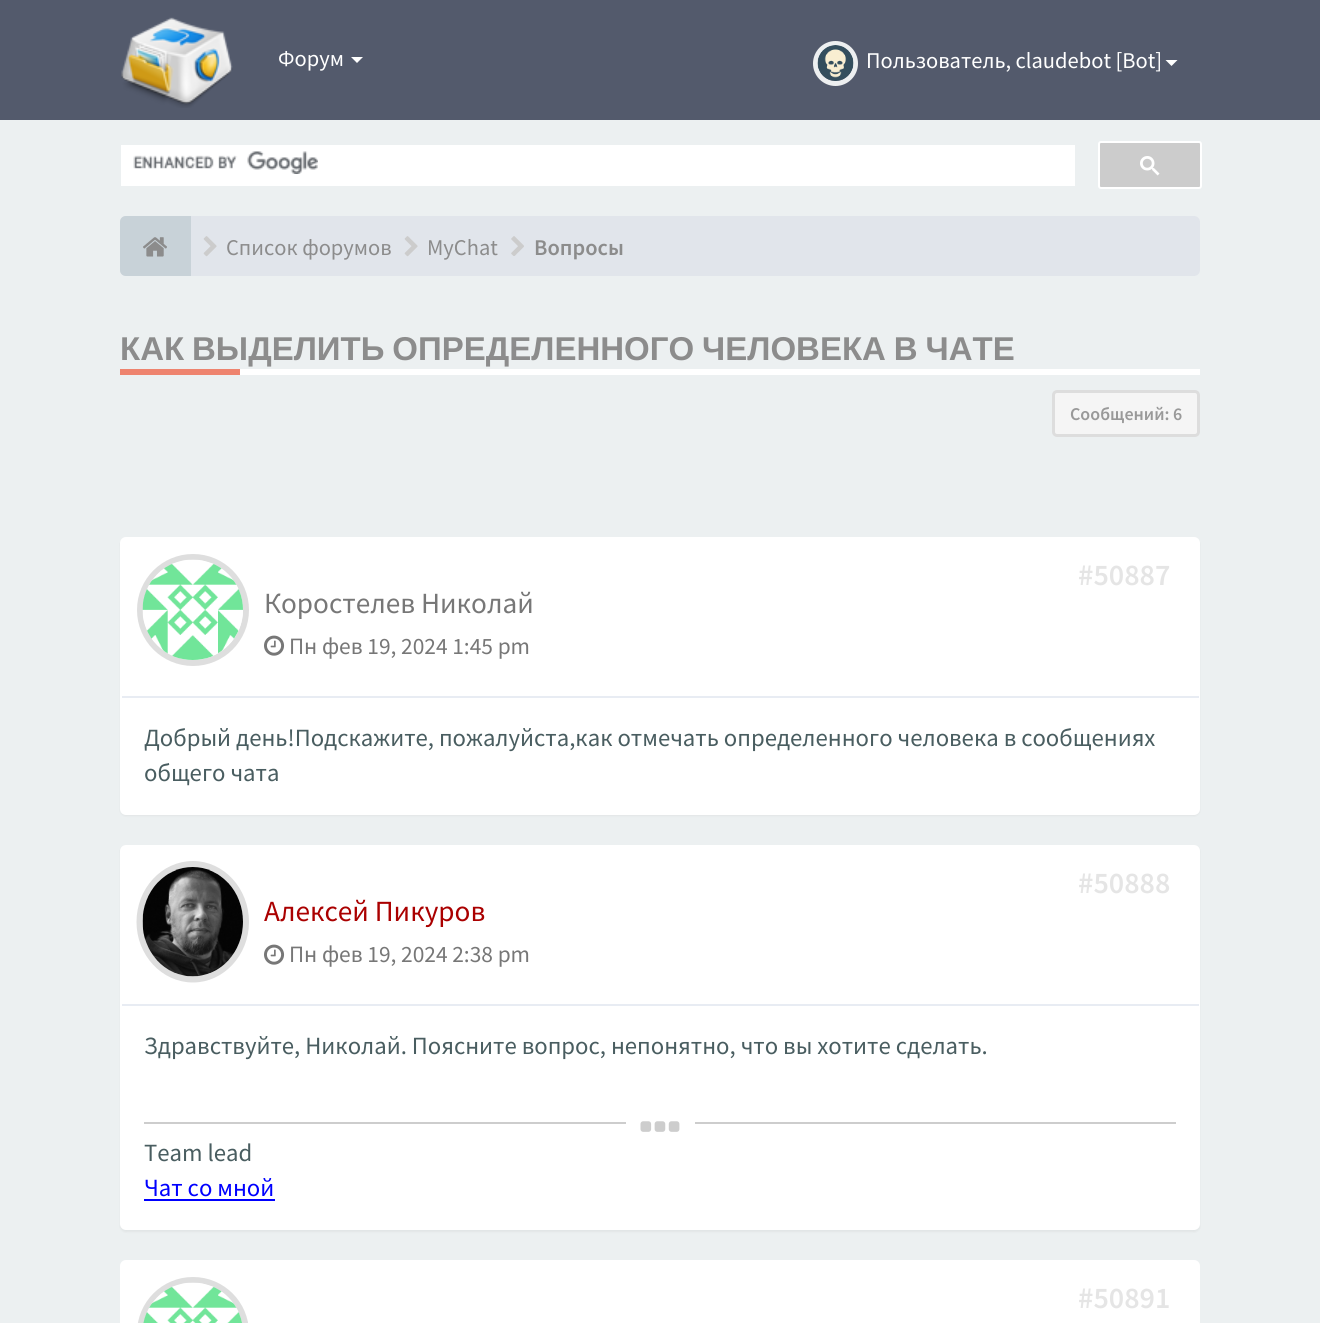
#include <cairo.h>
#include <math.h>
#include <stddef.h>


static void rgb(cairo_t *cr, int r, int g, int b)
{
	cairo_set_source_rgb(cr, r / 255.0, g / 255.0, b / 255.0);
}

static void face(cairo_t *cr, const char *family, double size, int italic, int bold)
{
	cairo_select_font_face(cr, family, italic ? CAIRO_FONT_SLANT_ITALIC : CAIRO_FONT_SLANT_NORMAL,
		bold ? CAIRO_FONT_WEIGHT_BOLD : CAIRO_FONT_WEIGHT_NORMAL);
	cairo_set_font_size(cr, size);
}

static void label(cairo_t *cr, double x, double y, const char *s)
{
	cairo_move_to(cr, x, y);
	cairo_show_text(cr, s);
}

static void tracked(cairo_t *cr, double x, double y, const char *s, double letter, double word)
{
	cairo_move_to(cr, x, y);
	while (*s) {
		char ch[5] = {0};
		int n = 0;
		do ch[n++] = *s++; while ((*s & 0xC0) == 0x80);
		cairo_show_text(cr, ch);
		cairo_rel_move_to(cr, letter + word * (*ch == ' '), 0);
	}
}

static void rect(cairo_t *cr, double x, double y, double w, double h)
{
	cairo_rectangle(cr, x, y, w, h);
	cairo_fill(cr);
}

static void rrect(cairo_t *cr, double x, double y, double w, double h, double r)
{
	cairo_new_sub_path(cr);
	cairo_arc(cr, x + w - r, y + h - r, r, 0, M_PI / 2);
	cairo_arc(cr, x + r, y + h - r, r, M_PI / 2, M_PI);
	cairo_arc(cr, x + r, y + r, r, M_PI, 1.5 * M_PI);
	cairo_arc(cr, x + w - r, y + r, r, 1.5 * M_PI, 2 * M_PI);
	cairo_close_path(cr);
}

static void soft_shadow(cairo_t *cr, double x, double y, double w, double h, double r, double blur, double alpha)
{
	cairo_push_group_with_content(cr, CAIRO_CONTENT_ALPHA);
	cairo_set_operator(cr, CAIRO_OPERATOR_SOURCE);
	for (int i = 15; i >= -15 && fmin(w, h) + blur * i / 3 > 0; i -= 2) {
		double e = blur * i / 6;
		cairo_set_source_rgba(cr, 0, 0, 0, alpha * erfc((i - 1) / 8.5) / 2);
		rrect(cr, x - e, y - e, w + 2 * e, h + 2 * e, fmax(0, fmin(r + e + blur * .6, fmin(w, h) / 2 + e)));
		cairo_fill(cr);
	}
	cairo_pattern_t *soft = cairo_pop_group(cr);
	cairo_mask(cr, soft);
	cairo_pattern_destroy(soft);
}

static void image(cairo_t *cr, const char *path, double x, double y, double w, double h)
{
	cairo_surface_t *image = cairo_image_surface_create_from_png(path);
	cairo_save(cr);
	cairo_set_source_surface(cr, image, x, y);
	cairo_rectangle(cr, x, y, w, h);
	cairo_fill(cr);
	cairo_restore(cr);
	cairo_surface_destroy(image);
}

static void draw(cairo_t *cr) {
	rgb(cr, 236, 240, 241);
	cairo_paint(cr);
	rgb(cr, 83, 90, 108);
	rect(cr, 0, 0, 1320, 120);
	image(cr, "image0.png", 121, 17, 112, 91);
	face(cr, "Source Sans Pro", 22.5, 0, 0);
	rgb(cr, 255, 255, 255);
	label(cr, 278, 66, "Форум");
	cairo_new_path(cr);
	cairo_move_to(cr, 351, 57);
	cairo_line_to(cr, 363, 57);
	cairo_line_to(cr, 357, 63);
	cairo_close_path(cr);
	cairo_fill(cr);
	cairo_arc(cr, 835.5, 63.5, 20, 0, 2 * M_PI);
	rgb(cr, 237, 239, 240);
	cairo_set_line_width(cr, 5);
	cairo_stroke(cr);
	image(cr, "image1.png", 817, 45, 37, 36);
	rgb(cr, 255, 255, 255);
	label(cr, 866, 68, "Пользователь, claudebot [Bot]");
	cairo_new_path(cr);
	cairo_move_to(cr, 1165.5, 60);
	cairo_line_to(cr, 1177.5, 60);
	cairo_line_to(cr, 1171.5, 66);
	cairo_close_path(cr);
	cairo_fill(cr);
	rect(cr, 121, 145, 954, 41);
	image(cr, "image2.png", 133, 151, 185, 23);
	rgb(cr, 204, 204, 204);
	rrect(cr, 1099, 142, 102, 46, 2);
	cairo_fill_preserve(cr);
	rgb(cr, 255, 255, 255);
	cairo_set_line_width(cr, 2);
	cairo_stroke(cr);
	image(cr, "image3.png", 1140, 156, 20, 20);
	rgb(cr, 225, 229, 235);
	rrect(cr, 120, 216, 1080, 60, 6);
	cairo_fill(cr);
	rgb(cr, 200, 210, 216);
	cairo_new_path(cr);
	cairo_move_to(cr, 126, 216);
	cairo_line_to(cr, 191, 216);
	cairo_line_to(cr, 191, 276);
	cairo_line_to(cr, 126, 276);
	cairo_curve_to(cr, 122.5, 276, 120, 273.5, 120, 270);
	cairo_line_to(cr, 120, 222);
	cairo_curve_to(cr, 120, 218.5, 122.5, 216, 126, 216);
	cairo_close_path(cr);
	cairo_fill(cr);
	image(cr, "image4.png", 143, 237, 24, 20);
	image(cr, "image5.png", 203, 236, 14, 21);
	rgb(cr, 140, 140, 140);
	label(cr, 226, 255, "Список форумов");
	image(cr, "image5.png", 404, 236, 14, 21);
	label(cr, 427, 255, "MyChat");
	image(cr, "image6.png", 511, 236, 13, 20);
	face(cr, "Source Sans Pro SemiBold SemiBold", 22.5, 0, 0);
	label(cr, 534, 255, "Вопросы");
	rgb(cr, 255, 255, 255);
	rect(cr, 240, 369, 960, 6);
	face(cr, "Liberation Sans", 33, 0, 1);
	rgb(cr, 140, 140, 140);
	tracked(cr, 120, 360, "КАК ВЫДЕЛИТЬ ОПРЕДЕЛЕННОГО ЧЕЛОВЕКА В ЧАТЕ", 0, -1.25);
	rgb(cr, 238, 131, 110);
	rect(cr, 120, 369, 120, 6);
	rgb(cr, 245, 245, 245);
	rrect(cr, 1053.5, 391.5, 145, 44, 3.5);
	cairo_fill_preserve(cr);
	rgb(cr, 221, 221, 221);
	cairo_set_line_width(cr, 3);
	cairo_stroke(cr);
	face(cr, "Source Sans Pro SemiBold SemiBold", 18, 0, 0);
	rgb(cr, 153, 153, 153);
	label(cr, 1070, 420, "Сообщений: 6");
	rgb(cr, 0, 0, 0);
	soft_shadow(cr, 120, 539, 1080, 277, 6, 1, 0.05);
	rgb(cr, 255, 255, 255);
	rrect(cr, 120, 537, 1080, 278, 6);
	cairo_fill(cr);
	rgb(cr, 232, 236, 243);
	rect(cr, 122, 696, 1077, 2);
	cairo_arc(cr, 193, 610, 53, 0, 2 * M_PI);
	rgb(cr, 222, 222, 222);
	cairo_set_line_width(cr, 6);
	cairo_stroke(cr);
	image(cr, "image7.png", 142, 559, 101, 101);
	face(cr, "Source Sans Pro SemiBold SemiBold", 30, 0, 0);
	rgb(cr, 229, 229, 229);
	label(cr, 1078, 585, "#50887");
	face(cr, "Source Sans Pro", 29.25, 0, 0);
	rgb(cr, 119, 119, 119);
	label(cr, 264, 613, "Коростелев Николай");
	image(cr, "image8.png", 264, 635, 21, 21);
	face(cr, "Source Sans Pro", 23.4, 0, 0);
	label(cr, 289, 654, "Пн фев 19, 2024 1:45 pm");
	face(cr, "Source Sans Pro", 24.75, 0, 0);
	rgb(cr, 73, 93, 96);
	label(cr, 144, 746, "Добрый день!Подскажите, пожалуйста,как отмечать определенного человека в сообщениях");
	label(cr, 144, 781, "общего чата");
	rgb(cr, 0, 0, 0);
	soft_shadow(cr, 120, 846, 1080, 386, 6, 1, 0.05);
	rgb(cr, 255, 255, 255);
	rrect(cr, 120, 845, 1080, 385, 6);
	cairo_fill(cr);
	rgb(cr, 232, 236, 243);
	rect(cr, 122, 1004, 1077, 2);
	cairo_new_path(cr);
	cairo_move_to(cr, 193, 864);
	cairo_curve_to(cr, 222, 864, 246, 890, 246, 922);
	cairo_curve_to(cr, 246, 953.5, 222, 979.5, 193, 979.5);
	cairo_curve_to(cr, 163.5, 979.5, 139.5, 953.5, 139.5, 922);
	cairo_curve_to(cr, 139.5, 890, 163.5, 864, 193, 864);
	cairo_close_path(cr);
	rgb(cr, 222, 222, 222);
	cairo_stroke(cr);
	image(cr, "image9.png", 142, 867, 101, 110);
	face(cr, "Source Sans Pro SemiBold SemiBold", 30, 0, 0);
	rgb(cr, 229, 229, 229);
	label(cr, 1078, 893, "#50888");
	face(cr, "Source Sans Pro", 29.25, 0, 0);
	rgb(cr, 170, 0, 0);
	label(cr, 264, 921, "Алексей Пикуров");
	image(cr, "image8.png", 264, 944, 21, 21);
	face(cr, "Source Sans Pro", 23.4, 0, 0);
	rgb(cr, 119, 119, 119);
	label(cr, 289, 962, "Пн фев 19, 2024 2:38 pm");
	face(cr, "Source Sans Pro", 24.75, 0, 0);
	rgb(cr, 73, 93, 96);
	label(cr, 144, 1054, "Здравствуйте, Николай. Поясните вопрос, непонятно, что вы хотите сделать.");
	rgb(cr, 205, 205, 205);
	rect(cr, 144, 1122, 1032, 2);
	rgb(cr, 255, 255, 255);
	rect(cr, 626, 1122, 69, 2);
	image(cr, "image10.png", 640, 1121, 40, 11);
	rgb(cr, 73, 93, 96);
	label(cr, 144, 1161, "Team lead");
	rgb(cr, 0, 0, 255);
	label(cr, 144, 1196, "Чат со мной");
	rect(cr, 144, 1199, 131, 2);
	rgb(cr, 255, 255, 255);
	rrect(cr, 120, 1260, 1080, 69, 6);
	cairo_fill(cr);
	rrect(cr, 140, 1280, 106, 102, 53);
	rgb(cr, 222, 222, 222);
	cairo_stroke(cr);
	image(cr, "image11.png", 143, 1282, 99, 41);
	face(cr, "Source Sans Pro SemiBold SemiBold", 30, 0, 0);
	rgb(cr, 229, 229, 229);
	label(cr, 1078, 1308, "#50891");
}

int main(void) {
	cairo_surface_t *surface = cairo_image_surface_create(CAIRO_FORMAT_RGB24, 1320, 1323);
	cairo_t *cr = cairo_create(surface);
	cairo_font_options_t *options = cairo_font_options_create();
	cairo_font_options_set_hint_metrics(options, CAIRO_HINT_METRICS_OFF);
	cairo_font_options_set_hint_style(options, CAIRO_HINT_STYLE_NONE);
	cairo_set_font_options(cr, options);
	cairo_set_miter_limit(cr, 4);
	draw(cr);
	cairo_surface_write_to_png(surface, "render.png");
	cairo_font_options_destroy(options);
	cairo_destroy(cr);
	cairo_surface_destroy(surface);
	return 0;
}
